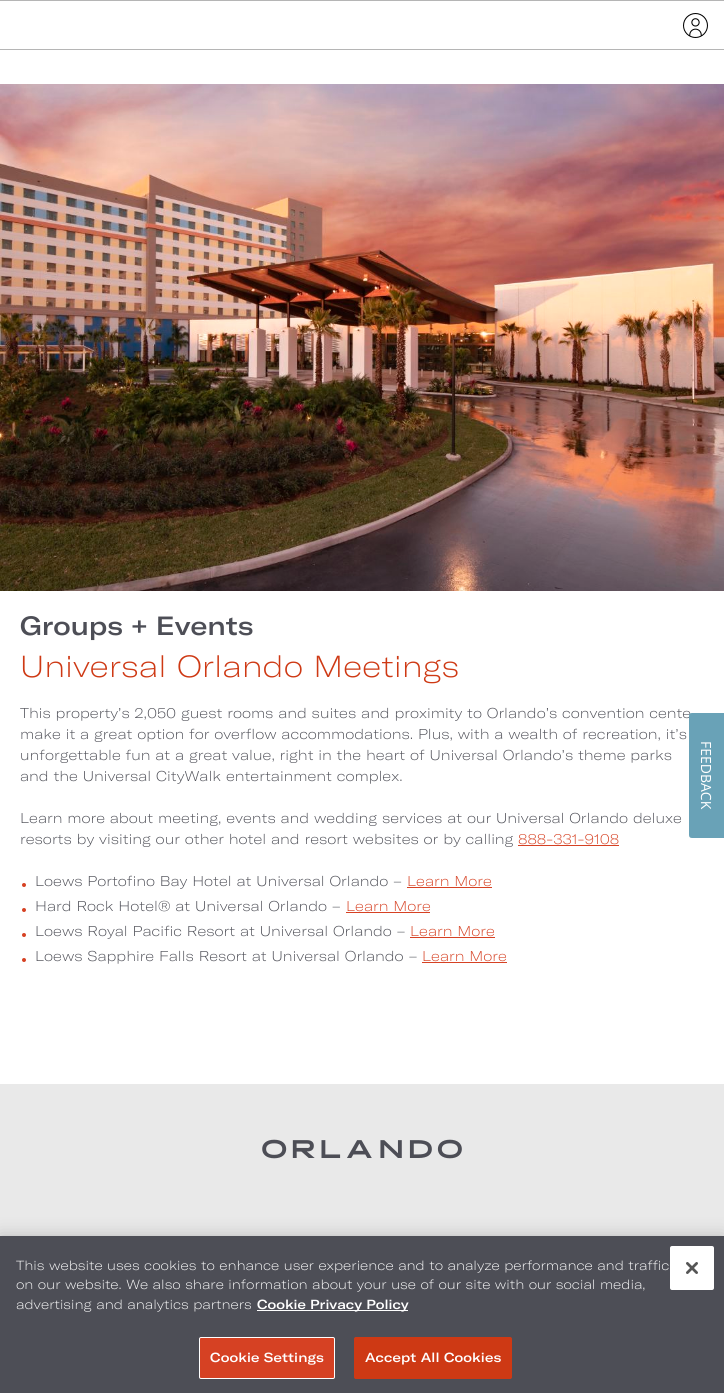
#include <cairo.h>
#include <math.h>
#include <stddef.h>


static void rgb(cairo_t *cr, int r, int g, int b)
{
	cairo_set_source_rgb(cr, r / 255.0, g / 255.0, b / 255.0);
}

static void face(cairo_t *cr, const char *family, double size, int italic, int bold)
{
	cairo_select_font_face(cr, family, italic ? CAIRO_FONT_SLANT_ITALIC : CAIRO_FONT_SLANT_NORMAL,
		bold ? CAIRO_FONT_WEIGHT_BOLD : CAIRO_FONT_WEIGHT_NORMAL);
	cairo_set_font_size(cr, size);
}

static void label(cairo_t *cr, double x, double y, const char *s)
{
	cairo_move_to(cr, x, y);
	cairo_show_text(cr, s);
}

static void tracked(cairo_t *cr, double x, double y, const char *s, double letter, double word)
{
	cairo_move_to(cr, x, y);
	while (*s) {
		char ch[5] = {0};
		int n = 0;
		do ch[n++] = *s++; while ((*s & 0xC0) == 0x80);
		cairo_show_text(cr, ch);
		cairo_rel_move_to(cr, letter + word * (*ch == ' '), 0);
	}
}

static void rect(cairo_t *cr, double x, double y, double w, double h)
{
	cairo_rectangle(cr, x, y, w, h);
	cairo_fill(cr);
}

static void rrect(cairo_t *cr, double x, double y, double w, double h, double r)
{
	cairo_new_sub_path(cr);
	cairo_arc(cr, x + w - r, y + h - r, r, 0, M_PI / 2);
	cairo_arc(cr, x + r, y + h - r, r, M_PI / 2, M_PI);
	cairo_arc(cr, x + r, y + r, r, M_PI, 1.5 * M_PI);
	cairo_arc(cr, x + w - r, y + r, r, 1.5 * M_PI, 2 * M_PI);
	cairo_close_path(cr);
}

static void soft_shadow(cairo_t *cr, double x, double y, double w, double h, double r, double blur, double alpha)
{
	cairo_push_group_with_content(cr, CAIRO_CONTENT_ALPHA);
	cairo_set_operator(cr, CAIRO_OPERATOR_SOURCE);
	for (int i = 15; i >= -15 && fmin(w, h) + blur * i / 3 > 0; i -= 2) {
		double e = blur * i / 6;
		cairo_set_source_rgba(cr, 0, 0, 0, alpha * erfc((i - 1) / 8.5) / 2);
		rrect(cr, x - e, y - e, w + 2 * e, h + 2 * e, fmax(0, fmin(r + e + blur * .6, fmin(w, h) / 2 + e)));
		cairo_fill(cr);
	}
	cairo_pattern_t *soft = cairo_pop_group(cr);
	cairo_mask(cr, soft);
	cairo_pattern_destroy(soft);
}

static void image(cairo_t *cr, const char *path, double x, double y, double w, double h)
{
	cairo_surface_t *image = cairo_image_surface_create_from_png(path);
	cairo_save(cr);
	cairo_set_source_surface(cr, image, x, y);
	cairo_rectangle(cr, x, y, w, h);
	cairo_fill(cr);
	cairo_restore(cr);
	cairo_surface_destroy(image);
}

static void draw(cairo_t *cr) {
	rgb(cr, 255, 255, 255);
	cairo_paint(cr);
	rgb(cr, 181, 181, 181);
	rect(cr, 0, 0, 724, 1);
	rect(cr, 0, 49, 724, 1);
	image(cr, "image0.png", 683, 13, 25, 25);
	image(cr, "image1.png", 0, 84, 724, 507);
	face(cr, "GT America Medium", 26, 0, 0);
	rgb(cr, 77, 78, 86);
	label(cr, 20, 635, "Groups + Events");
	face(cr, "GT America Light", 30, 0, 0);
	rgb(cr, 206, 57, 20);
	label(cr, 20, 677, "Universal Orlando Meetings");
	face(cr, "GT America Light", 14, 0, 0);
	rgb(cr, 77, 78, 86);
	label(cr, 20, 718, "This property’s 2,050 guest rooms and suites and proximity to Orlando’s convention cente");
	label(cr, 20, 739, "make it a great option for overflow accommodations. Plus, with a wealth of recreation, it’s");
	label(cr, 20, 760, "unforgettable fun at a great value, right in the heart of Universal Orlando’s theme parks");
	label(cr, 20, 781, "and the Universal CityWalk entertainment complex.");
	label(cr, 20, 823, "Learn more about meeting, events and wedding services at our Universal Orlando deluxe");
	label(cr, 20, 844, "resorts by visiting our other hotel and resort websites or by calling");
	rgb(cr, 214, 65, 35);
	label(cr, 518, 844, "888-331-9108");
	rect(cr, 518, 845, 101, 1);
	cairo_new_path(cr);
	cairo_arc(cr, 24, 885, 2, 0, 2 * M_PI);
	cairo_fill(cr);
	rgb(cr, 77, 78, 86);
	label(cr, 35, 886, "Loews Portofino Bay Hotel at Universal Orlando –");
	rgb(cr, 214, 65, 35);
	label(cr, 407, 886, "Learn More");
	rect(cr, 407, 887, 85, 1);
	cairo_new_path(cr);
	cairo_arc(cr, 24, 910, 2, 0, 2 * M_PI);
	cairo_fill(cr);
	rgb(cr, 77, 78, 86);
	label(cr, 35, 911, "Hard Rock Hotel® at Universal Orlando –");
	rgb(cr, 214, 65, 35);
	label(cr, 346, 911, "Learn More");
	rect(cr, 346, 912, 84, 1);
	cairo_new_path(cr);
	cairo_arc(cr, 24, 935, 2, 0, 2 * M_PI);
	cairo_fill(cr);
	rgb(cr, 77, 78, 86);
	label(cr, 35, 936, "Loews Royal Pacific Resort at Universal Orlando –");
	rgb(cr, 214, 65, 35);
	label(cr, 410, 936, "Learn More");
	rect(cr, 410, 937, 85, 1);
	cairo_new_path(cr);
	cairo_arc(cr, 24, 960, 2, 0, 2 * M_PI);
	cairo_fill(cr);
	rgb(cr, 77, 78, 86);
	label(cr, 35, 961, "Loews Sapphire Falls Resort at Universal Orlando –");
	rgb(cr, 214, 65, 35);
	label(cr, 422, 961, "Learn More");
	rect(cr, 422, 962, 85, 1);
	rgb(cr, 105, 162, 183);
	cairo_new_path(cr);
	cairo_move_to(cr, 724, 713);
	cairo_line_to(cr, 724, 838);
	cairo_line_to(cr, 692, 838);
	cairo_curve_to(cr, 690, 838, 689, 837, 689, 835);
	cairo_line_to(cr, 689, 716);
	cairo_curve_to(cr, 689, 714, 690, 713, 692, 713);
	cairo_close_path(cr);
	cairo_fill(cr);
	face(cr, "Open Sans", 14, 0, 0);
	rgb(cr, 255, 255, 255);
	cairo_save(cr);
	cairo_translate(cr, 701, 741);
	cairo_rotate(cr, 90 * M_PI / 180);
	label(cr, 0, 0, "FEEDBACK");
	cairo_restore(cr);
	rgb(cr, 233, 233, 233);
	rect(cr, 0, 1084, 724, 152);
	image(cr, "image2.png", 262, 1139, 200, 20);
	rgb(cr, 0, 0, 0);
	soft_shadow(cr, 0, 1236, 724, 157, 0, 9, 0.2);
	rgb(cr, 77, 78, 86);
	rect(cr, 0, 1236, 724, 157);
	face(cr, "GT America Light", 13, 0, 0);
	rgb(cr, 255, 255, 255);
	label(cr, 16, 1270, "This website uses cookies to enhance user experience and to analyze performance and traffic");
	label(cr, 16, 1289, "on our website. We also share information about your use of our site with our social media,");
	label(cr, 16, 1309, "advertising and analytics partners");
	rect(cr, 257, 1310, 151, 1);
	face(cr, "GT America Medium", 13, 0, 0);
	label(cr, 257, 1309, "Cookie Privacy Policy");
	rgb(cr, 214, 65, 35);
	rrect(cr, 199.5, 1337.5, 135, 41, 1.5);
	cairo_fill_preserve(cr);
	rgb(cr, 255, 255, 255);
	cairo_set_line_width(cr, 1);
	cairo_stroke(cr);
	tracked(cr, 210, 1362, "Cookie Settings", 0.1, 0);
	rgb(cr, 206, 57, 20);
	rrect(cr, 354.5, 1337.5, 157, 41, 1.5);
	cairo_fill_preserve(cr);
	cairo_stroke(cr);
	rgb(cr, 255, 255, 255);
	tracked(cr, 365, 1362, "Accept All Cookies", 0.1, 0);
	rrect(cr, 670, 1246, 44, 44, 2);
	cairo_fill(cr);
	image(cr, "image3.png", 686, 1262, 12, 12);
}

int main(void) {
	cairo_surface_t *surface = cairo_image_surface_create(CAIRO_FORMAT_RGB24, 724, 1393);
	cairo_t *cr = cairo_create(surface);
	cairo_font_options_t *options = cairo_font_options_create();
	cairo_font_options_set_hint_metrics(options, CAIRO_HINT_METRICS_OFF);
	cairo_font_options_set_hint_style(options, CAIRO_HINT_STYLE_NONE);
	cairo_set_font_options(cr, options);
	cairo_set_miter_limit(cr, 4);
	draw(cr);
	cairo_surface_write_to_png(surface, "render.png");
	cairo_font_options_destroy(options);
	cairo_destroy(cr);
	cairo_surface_destroy(surface);
	return 0;
}
